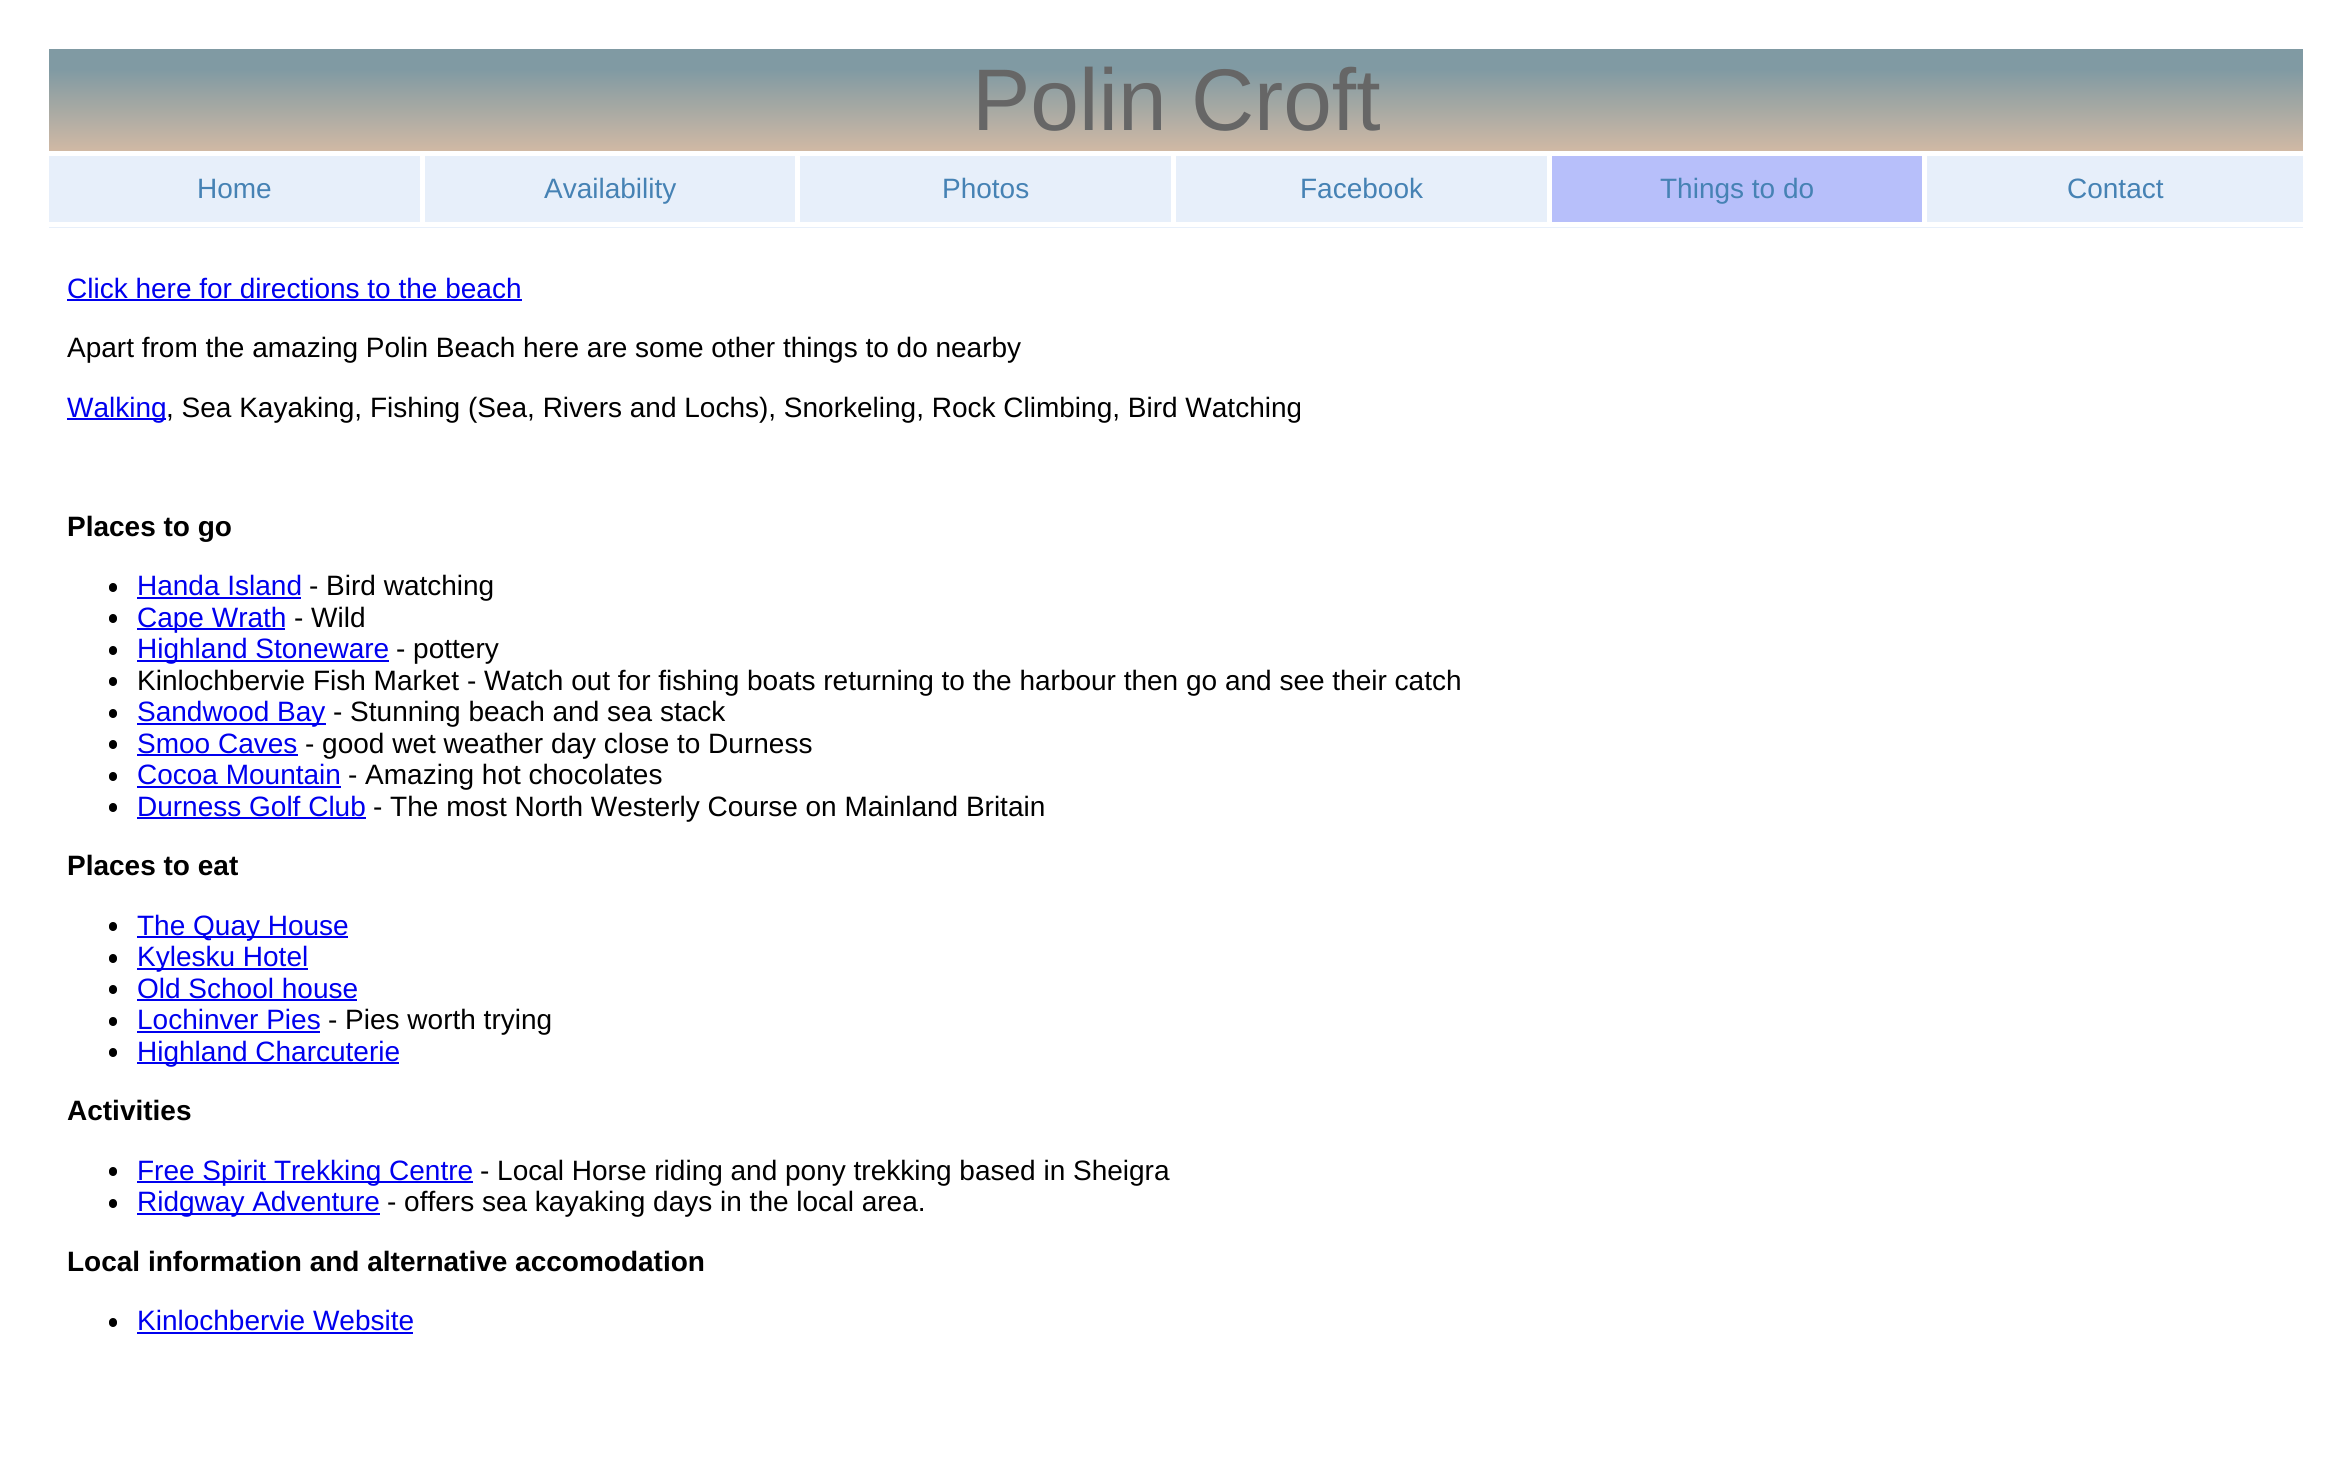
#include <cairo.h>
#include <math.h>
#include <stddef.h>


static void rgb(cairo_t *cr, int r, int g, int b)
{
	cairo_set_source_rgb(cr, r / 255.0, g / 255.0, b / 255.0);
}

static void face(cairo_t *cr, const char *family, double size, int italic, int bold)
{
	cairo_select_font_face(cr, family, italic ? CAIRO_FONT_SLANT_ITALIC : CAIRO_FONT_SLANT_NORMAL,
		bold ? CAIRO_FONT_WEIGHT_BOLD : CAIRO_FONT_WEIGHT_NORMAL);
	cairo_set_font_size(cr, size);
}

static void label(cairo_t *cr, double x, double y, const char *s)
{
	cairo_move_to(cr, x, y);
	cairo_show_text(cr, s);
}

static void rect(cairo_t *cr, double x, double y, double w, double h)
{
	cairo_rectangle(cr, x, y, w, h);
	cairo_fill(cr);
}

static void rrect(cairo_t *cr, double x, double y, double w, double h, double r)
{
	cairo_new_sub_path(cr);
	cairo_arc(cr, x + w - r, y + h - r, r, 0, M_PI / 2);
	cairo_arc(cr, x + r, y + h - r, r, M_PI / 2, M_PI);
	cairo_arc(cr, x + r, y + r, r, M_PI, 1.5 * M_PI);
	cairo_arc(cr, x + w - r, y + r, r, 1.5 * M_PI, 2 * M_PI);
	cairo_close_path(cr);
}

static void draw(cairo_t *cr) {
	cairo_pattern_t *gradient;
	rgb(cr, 255, 255, 255);
	cairo_paint(cr);
	gradient = cairo_pattern_create_linear(1176, 49, 1176, 151);
	cairo_pattern_add_color_stop_rgba(gradient, 0.2, 0.502, 0.604, 0.639, 1);
	cairo_pattern_add_color_stop_rgba(gradient, 1, 0.816, 0.725, 0.643, 1);
	cairo_set_source(cr, gradient);
	cairo_pattern_destroy(gradient);
	rect(cr, 49, 49, 2254, 102);
	face(cr, "Liberation Sans", 87.5, 0, 0);
	rgb(cr, 102, 102, 102);
	label(cr, 972, 130, "Polin Croft");
	rgb(cr, 231, 239, 250);
	rect(cr, 49, 156, 2254, 72);
	rgb(cr, 255, 255, 255);
	rect(cr, 49, 222, 2254, 5);
	rect(cr, 420, 156, 5, 66);
	face(cr, "Liberation Sans", 28, 0, 0);
	rgb(cr, 70, 130, 180);
	label(cr, 197, 198, "Home");
	rgb(cr, 255, 255, 255);
	rect(cr, 795, 156, 5, 66);
	rgb(cr, 70, 130, 180);
	label(cr, 544, 198, "Availability");
	rgb(cr, 255, 255, 255);
	rect(cr, 1171, 156, 5, 66);
	rgb(cr, 70, 130, 180);
	label(cr, 942, 198, "Photos");
	rgb(cr, 255, 255, 255);
	rect(cr, 1547, 156, 5, 66);
	rgb(cr, 70, 130, 180);
	label(cr, 1300, 198, "Facebook");
	rgb(cr, 255, 255, 255);
	rect(cr, 1922, 156, 5, 66);
	rgb(cr, 183, 191, 250);
	rect(cr, 1552, 156, 370, 66);
	rgb(cr, 70, 130, 180);
	label(cr, 1660, 198, "Things to do");
	label(cr, 2067, 198, "Contact");
	rgb(cr, 0, 0, 238);
	label(cr, 67, 298, "Click here for directions to the beach");
	rect(cr, 67, 299, 455, 2);
	rgb(cr, 0, 0, 0);
	label(cr, 67, 357, "Apart from the amazing Polin Beach here are some other things to do nearby");
	rgb(cr, 0, 0, 238);
	rect(cr, 67, 418, 99, 2);
	label(cr, 67, 417, "Walking");
	rgb(cr, 0, 0, 0);
	label(cr, 166, 417, ", Sea Kayaking, Fishing (Sea, Rivers and Lochs), Snorkeling, Rock Climbing, Bird Watching");
	face(cr, "Liberation Sans", 28, 0, 1);
	label(cr, 67, 536, "Places to go");
	rrect(cr, 109, 583, 8, 9, 4);
	cairo_fill(cr);
	face(cr, "Liberation Sans", 28, 0, 0);
	rgb(cr, 0, 0, 238);
	label(cr, 137, 595, "Handa Island");
	rect(cr, 137, 597, 164, 2);
	rgb(cr, 0, 0, 0);
	label(cr, 309, 595, "- Bird watching");
	rrect(cr, 109, 614, 8, 9, 4);
	cairo_fill(cr);
	rgb(cr, 0, 0, 238);
	rect(cr, 137, 628, 148, 2);
	label(cr, 137, 627, "Cape Wrath");
	rgb(cr, 0, 0, 0);
	label(cr, 294, 627, "- Wild");
	rrect(cr, 109, 646, 8, 9, 4);
	cairo_fill(cr);
	rgb(cr, 0, 0, 238);
	rect(cr, 137, 660, 252, 2);
	label(cr, 137, 658, "Highland Stoneware");
	rgb(cr, 0, 0, 0);
	label(cr, 396, 658, "- pottery");
	rrect(cr, 109, 677, 8, 9, 4);
	cairo_fill(cr);
	label(cr, 137, 690, "Kinlochbervie Fish Market - Watch out for fishing boats returning to the harbour then go and see their catch");
	rrect(cr, 109, 709, 8, 9, 4);
	cairo_fill(cr);
	rgb(cr, 0, 0, 238);
	rect(cr, 137, 723, 189, 2);
	label(cr, 137, 721, "Sandwood Bay");
	rgb(cr, 0, 0, 0);
	label(cr, 333, 721, "- Stunning beach and sea stack");
	rrect(cr, 109, 740, 8, 9, 4);
	cairo_fill(cr);
	rgb(cr, 0, 0, 238);
	label(cr, 137, 753, "Smoo Caves");
	rect(cr, 137, 754, 161, 2);
	rgb(cr, 0, 0, 0);
	label(cr, 305, 753, "- good wet weather day close to Durness");
	rrect(cr, 109, 772, 8, 9, 4);
	cairo_fill(cr);
	rgb(cr, 0, 0, 238);
	label(cr, 137, 784, "Cocoa Mountain");
	rect(cr, 137, 786, 204, 2);
	rgb(cr, 0, 0, 0);
	label(cr, 348, 784, "- Amazing hot chocolates");
	rrect(cr, 109, 803, 8, 9, 4);
	cairo_fill(cr);
	rgb(cr, 0, 0, 238);
	label(cr, 137, 816, "Durness Golf Club");
	rect(cr, 137, 817, 229, 2);
	rgb(cr, 0, 0, 0);
	label(cr, 373, 816, "- The most North Westerly Course on Mainland Britain");
	face(cr, "Liberation Sans", 28, 0, 1);
	label(cr, 67, 875, "Places to eat");
	rrect(cr, 109, 922, 8, 9, 4);
	cairo_fill(cr);
	rgb(cr, 0, 0, 238);
	rect(cr, 137, 936, 211, 2);
	face(cr, "Liberation Sans", 28, 0, 0);
	label(cr, 137, 935, "The Quay House");
	rgb(cr, 0, 0, 0);
	rrect(cr, 109, 954, 8, 9, 4);
	cairo_fill(cr);
	rgb(cr, 0, 0, 238);
	rect(cr, 137, 968, 171, 2);
	label(cr, 137, 966, "Kylesku Hotel");
	rgb(cr, 0, 0, 0);
	rrect(cr, 109, 985, 8, 9, 4);
	cairo_fill(cr);
	rgb(cr, 0, 0, 238);
	label(cr, 137, 998, "Old School house");
	rect(cr, 137, 999, 220, 2);
	rgb(cr, 0, 0, 0);
	rrect(cr, 109, 1017, 8, 9, 4);
	cairo_fill(cr);
	rgb(cr, 0, 0, 238);
	label(cr, 137, 1029, "Lochinver Pies");
	rect(cr, 137, 1031, 183, 2);
	rgb(cr, 0, 0, 0);
	label(cr, 328, 1029, "- Pies worth trying");
	rrect(cr, 109, 1048, 8, 9, 4);
	cairo_fill(cr);
	rgb(cr, 0, 0, 238);
	rect(cr, 137, 1062, 262, 2);
	label(cr, 137, 1061, "Highland Charcuterie");
	face(cr, "Liberation Sans", 28, 0, 1);
	rgb(cr, 0, 0, 0);
	label(cr, 67, 1120, "Activities");
	rrect(cr, 109, 1167, 8, 9, 4);
	cairo_fill(cr);
	rgb(cr, 0, 0, 238);
	rect(cr, 137, 1181, 336, 2);
	face(cr, "Liberation Sans", 28, 0, 0);
	label(cr, 137, 1180, "Free Spirit Trekking Centre");
	rgb(cr, 0, 0, 0);
	label(cr, 480, 1180, "- Local Horse riding and pony trekking based in Sheigra");
	rrect(cr, 109, 1199, 8, 9, 4);
	cairo_fill(cr);
	rgb(cr, 0, 0, 238);
	rect(cr, 137, 1213, 243, 2);
	label(cr, 137, 1211, "Ridgway Adventure");
	rgb(cr, 0, 0, 0);
	label(cr, 387, 1211, "- offers sea kayaking days in the local area.");
	face(cr, "Liberation Sans", 28, 0, 1);
	label(cr, 67, 1271, "Local information and alternative accomodation");
	rrect(cr, 109, 1318, 8, 9, 4);
	cairo_fill(cr);
	face(cr, "Liberation Sans", 28, 0, 0);
	rgb(cr, 0, 0, 238);
	label(cr, 137, 1330, "Kinlochbervie Website");
	rect(cr, 137, 1332, 276, 2);
}

int main(void) {
	cairo_surface_t *surface = cairo_image_surface_create(CAIRO_FORMAT_RGB24, 2351, 1481);
	cairo_t *cr = cairo_create(surface);
	cairo_font_options_t *options = cairo_font_options_create();
	cairo_font_options_set_hint_metrics(options, CAIRO_HINT_METRICS_OFF);
	cairo_font_options_set_hint_style(options, CAIRO_HINT_STYLE_NONE);
	cairo_set_font_options(cr, options);
	cairo_set_miter_limit(cr, 4);
	draw(cr);
	cairo_surface_write_to_png(surface, "render.png");
	cairo_font_options_destroy(options);
	cairo_destroy(cr);
	cairo_surface_destroy(surface);
	return 0;
}
